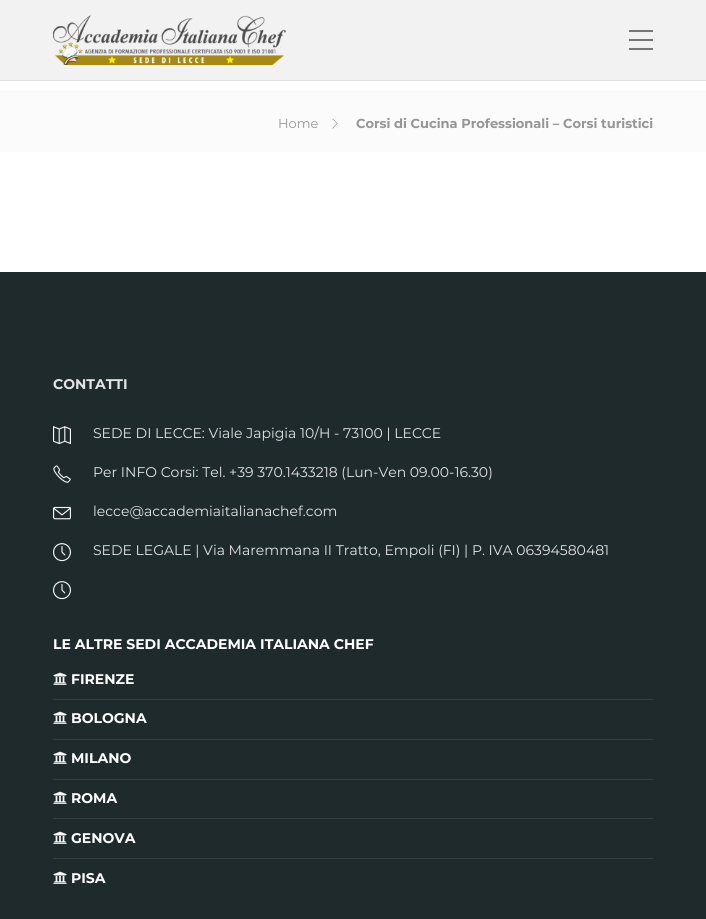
#include <cairo.h>
#include <math.h>
#include <stddef.h>


static void rgb(cairo_t *cr, int r, int g, int b)
{
	cairo_set_source_rgb(cr, r / 255.0, g / 255.0, b / 255.0);
}

static void face(cairo_t *cr, const char *family, double size, int italic, int bold)
{
	cairo_select_font_face(cr, family, italic ? CAIRO_FONT_SLANT_ITALIC : CAIRO_FONT_SLANT_NORMAL,
		bold ? CAIRO_FONT_WEIGHT_BOLD : CAIRO_FONT_WEIGHT_NORMAL);
	cairo_set_font_size(cr, size);
}

static void label(cairo_t *cr, double x, double y, const char *s)
{
	cairo_move_to(cr, x, y);
	cairo_show_text(cr, s);
}

static void rect(cairo_t *cr, double x, double y, double w, double h)
{
	cairo_rectangle(cr, x, y, w, h);
	cairo_fill(cr);
}

static void image(cairo_t *cr, const char *path, double x, double y, double w, double h)
{
	cairo_surface_t *image = cairo_image_surface_create_from_png(path);
	cairo_save(cr);
	cairo_set_source_surface(cr, image, x, y);
	cairo_rectangle(cr, x, y, w, h);
	cairo_fill(cr);
	cairo_restore(cr);
	cairo_surface_destroy(image);
}

static void draw(cairo_t *cr) {
	rgb(cr, 255, 255, 255);
	cairo_paint(cr);
	rgb(cr, 242, 242, 242);
	rect(cr, 0, 0, 706, 80);
	rgb(cr, 223, 223, 223);
	rect(cr, 0, 80, 706, 1);
	image(cr, "image0.png", 53, 15, 233, 50);
	rgb(cr, 117, 117, 117);
	rect(cr, 629, 39, 24, 2);
	rect(cr, 629, 30, 24, 2);
	rect(cr, 629, 48, 24, 2);
	rgb(cr, 251, 251, 251);
	rect(cr, 0, 90, 706, 62);
	face(cr, "Montserrat", 13, 0, 0);
	rgb(cr, 151, 149, 149);
	label(cr, 278, 128, "Home");
	image(cr, "image1.png", 332, 118, 6, 11);
	face(cr, "Montserrat", 13, 0, 1);
	label(cr, 356, 128, "Corsi di Cucina Professionali – Corsi turistici");
	rgb(cr, 31, 42, 44);
	rect(cr, 0, 272, 706, 647);
	face(cr, "Montserrat", 14, 0, 1);
	rgb(cr, 227, 227, 227);
	label(cr, 53, 389, "CONTATTI");
	image(cr, "image2.png", 53, 426, 18, 19);
	face(cr, "Montserrat", 14, 0, 0);
	label(cr, 93, 438, "SEDE DI LECCE: Viale Japigia 10/H - 73100 | LECCE");
	image(cr, "image3.png", 53, 465, 18, 18);
	label(cr, 93, 477, "Per INFO Corsi: Tel. +39 370.1433218 (Lun-Ven 09.00-16.30)");
	image(cr, "image4.png", 53, 506, 18, 14);
	label(cr, 93, 516, "lecce@accademiaitalianachef.com");
	image(cr, "image5.png", 53, 543, 18, 19);
	label(cr, 93, 555, "SEDE LEGALE | Via Maremmana II Tratto, Empoli (FI) | P. IVA 06394580481");
	image(cr, "image5.png", 53, 581, 18, 19);
	face(cr, "Montserrat", 14, 0, 1);
	rgb(cr, 255, 255, 255);
	label(cr, 53, 649, "LE ALTRE SEDI ACCADEMIA ITALIANA CHEF");
	rgb(cr, 53, 63, 65);
	rect(cr, 53, 699, 600, 1);
	image(cr, "image6.png", 53, 672, 14, 13);
	rgb(cr, 255, 255, 255);
	label(cr, 71, 684, "FIRENZE");
	rgb(cr, 53, 63, 65);
	rect(cr, 53, 739, 600, 1);
	image(cr, "image6.png", 53, 711, 14, 13);
	rgb(cr, 255, 255, 255);
	label(cr, 71, 723, "BOLOGNA");
	rgb(cr, 53, 63, 65);
	rect(cr, 53, 779, 600, 1);
	image(cr, "image6.png", 53, 751, 14, 13);
	rgb(cr, 255, 255, 255);
	label(cr, 71, 763, "MILANO");
	rgb(cr, 53, 63, 65);
	rect(cr, 53, 818, 600, 1);
	image(cr, "image6.png", 53, 791, 14, 13);
	rgb(cr, 255, 255, 255);
	label(cr, 71, 803, "ROMA");
	rgb(cr, 53, 63, 65);
	rect(cr, 53, 858, 600, 1);
	image(cr, "image6.png", 53, 831, 14, 13);
	rgb(cr, 255, 255, 255);
	label(cr, 71, 843, "GENOVA");
	image(cr, "image6.png", 53, 871, 14, 13);
	label(cr, 71, 883, "PISA");
}

int main(void) {
	cairo_surface_t *surface = cairo_image_surface_create(CAIRO_FORMAT_RGB24, 706, 919);
	cairo_t *cr = cairo_create(surface);
	cairo_font_options_t *options = cairo_font_options_create();
	cairo_font_options_set_hint_metrics(options, CAIRO_HINT_METRICS_OFF);
	cairo_font_options_set_hint_style(options, CAIRO_HINT_STYLE_NONE);
	cairo_set_font_options(cr, options);
	cairo_set_miter_limit(cr, 4);
	draw(cr);
	cairo_surface_write_to_png(surface, "render.png");
	cairo_font_options_destroy(options);
	cairo_destroy(cr);
	cairo_surface_destroy(surface);
	return 0;
}
